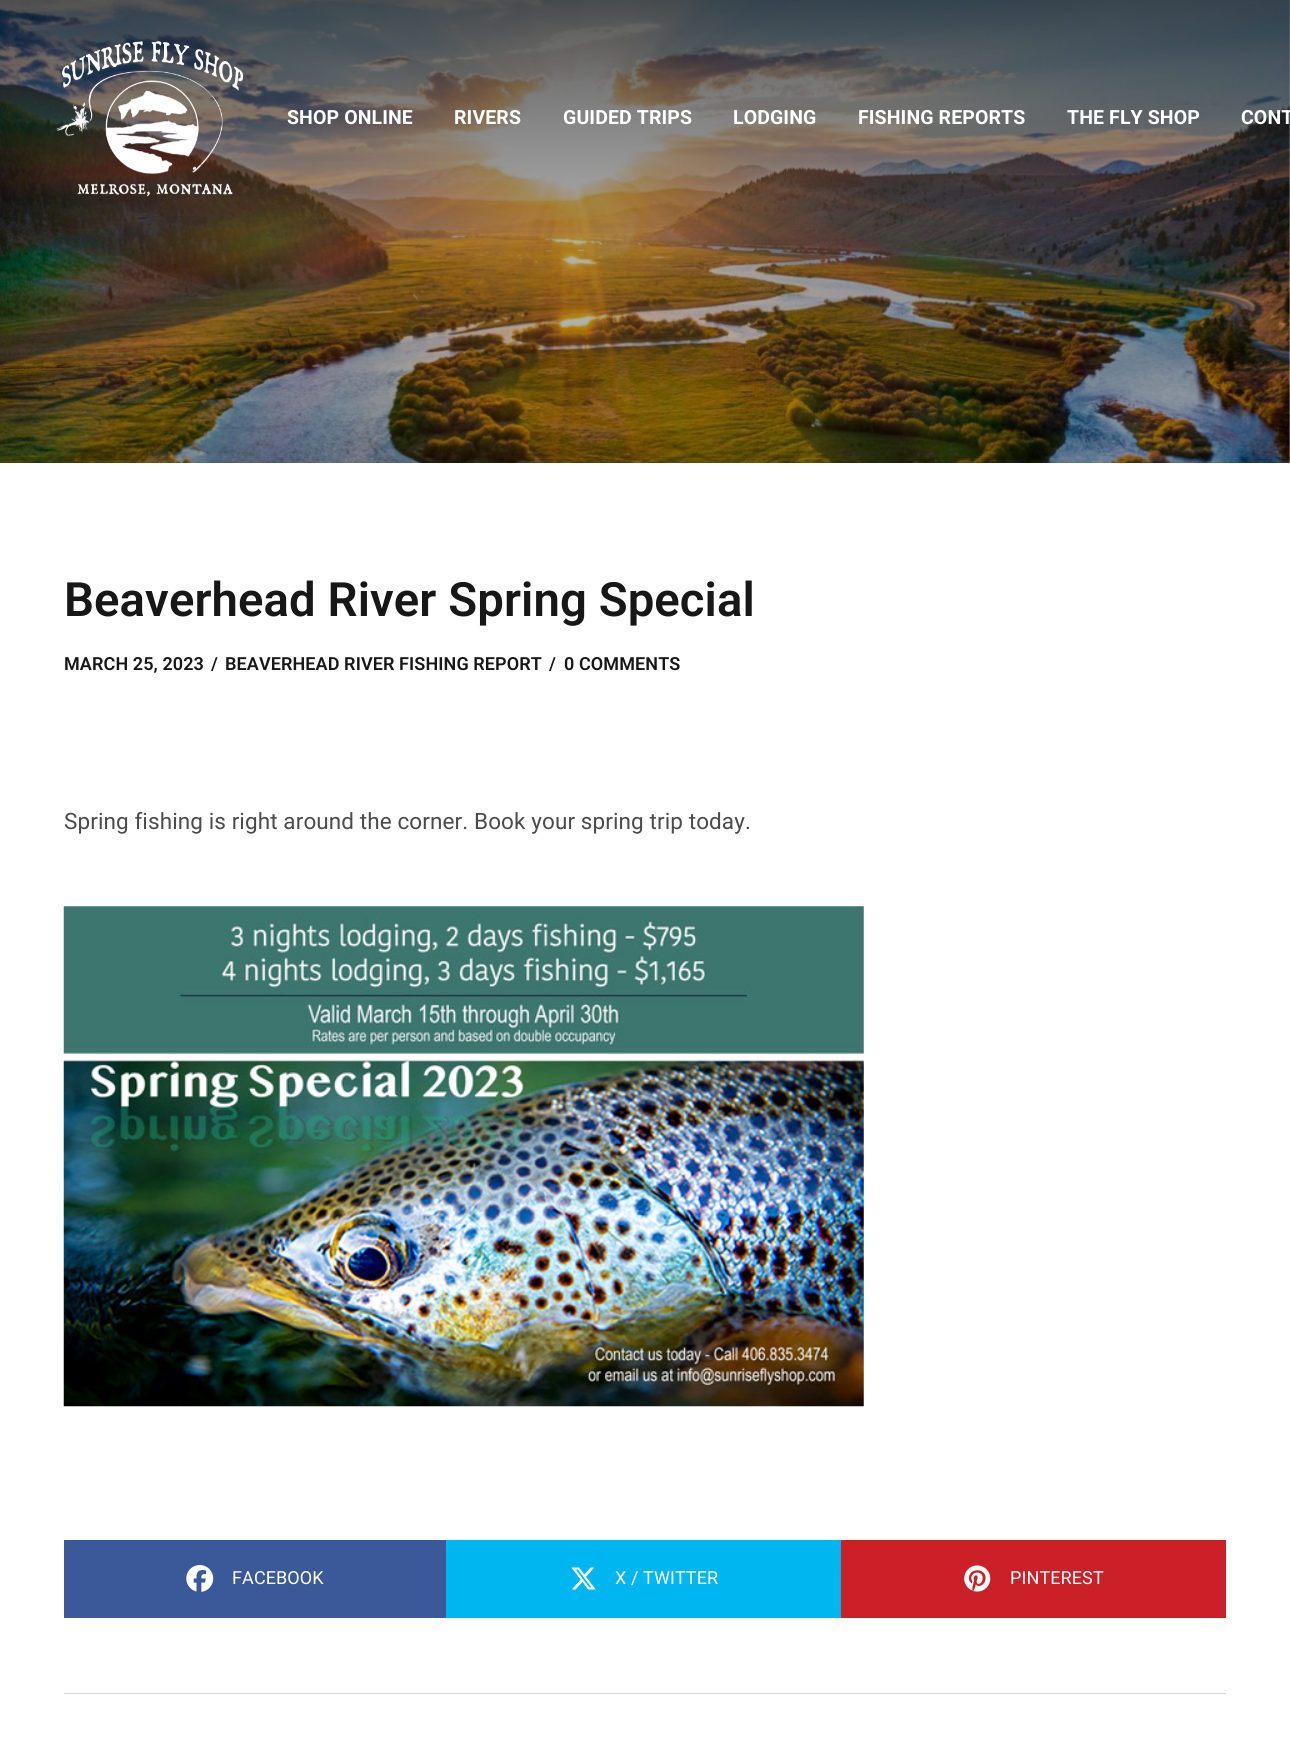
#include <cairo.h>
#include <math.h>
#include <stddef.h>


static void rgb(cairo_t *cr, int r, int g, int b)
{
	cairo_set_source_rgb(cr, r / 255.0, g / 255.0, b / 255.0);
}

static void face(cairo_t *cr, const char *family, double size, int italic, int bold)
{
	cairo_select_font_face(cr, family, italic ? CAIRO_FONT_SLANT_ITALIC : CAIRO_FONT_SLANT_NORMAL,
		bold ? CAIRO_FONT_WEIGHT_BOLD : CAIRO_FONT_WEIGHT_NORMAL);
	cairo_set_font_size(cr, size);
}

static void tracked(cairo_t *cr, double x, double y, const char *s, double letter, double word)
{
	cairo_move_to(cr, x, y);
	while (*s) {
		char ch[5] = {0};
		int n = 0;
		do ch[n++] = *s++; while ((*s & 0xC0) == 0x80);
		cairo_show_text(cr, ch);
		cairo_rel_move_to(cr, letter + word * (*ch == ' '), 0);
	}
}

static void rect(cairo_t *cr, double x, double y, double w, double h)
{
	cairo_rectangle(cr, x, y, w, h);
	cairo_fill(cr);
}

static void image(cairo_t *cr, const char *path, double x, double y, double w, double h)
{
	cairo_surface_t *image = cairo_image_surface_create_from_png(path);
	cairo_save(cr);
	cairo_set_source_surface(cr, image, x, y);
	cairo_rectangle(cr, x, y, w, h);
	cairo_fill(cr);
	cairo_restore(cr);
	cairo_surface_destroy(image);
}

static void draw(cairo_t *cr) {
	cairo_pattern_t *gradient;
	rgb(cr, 255, 255, 255);
	cairo_paint(cr);
	image(cr, "image1.png", 0, 0, 1290, 463);
	gradient = cairo_pattern_create_linear(645, 0, 645, 238);
	cairo_pattern_add_color_stop_rgba(gradient, 0, 0, 0, 0, 0.5);
	cairo_pattern_add_color_stop_rgba(gradient, 1, 0, 0, 0, 0);
	cairo_set_source(cr, gradient);
	cairo_pattern_destroy(gradient);
	rect(cr, 0, 0, 1290, 228);
	image(cr, "image0.png", 56, 41, 188, 156);
	face(cr, "Roboto", 19.5, 0, 1);
	rgb(cr, 255, 255, 255);
	tracked(cr, 287, 124, "SHOP ONLINE", 0.1, 0);
	tracked(cr, 454, 124, "RIVERS", 0.1, 0);
	tracked(cr, 563, 124, "GUIDED TRIPS", 0.1, 0);
	tracked(cr, 733, 124, "LODGING", 0.1, 0);
	tracked(cr, 858, 124, "FISHING REPORTS", 0.1, 0);
	tracked(cr, 1067, 124, "THE FLY SHOP", 0.1, 0);
	tracked(cr, 1241, 124, "CONT", 0.1, 0);
	face(cr, "Roboto SemiBold", 47.25, 0, 0);
	rgb(cr, 23, 23, 23);
	tracked(cr, 64, 616, "Beaverhead River Spring Special", 0.1, 0);
	face(cr, "Roboto SemiBold", 18, 0, 0);
	tracked(cr, 64, 670, "MARCH 25, 2023", 0.1, 0);
	tracked(cr, 211, 670, "/", 0.1, 0);
	tracked(cr, 225, 670, "BEAVERHEAD RIVER FISHING REPORT", 0.1, 0);
	tracked(cr, 549, 670, "/", 0.1, 0);
	tracked(cr, 564, 670, "0 COMMENTS", 0.1, 0);
	face(cr, "Roboto", 22.5, 0, 0);
	rgb(cr, 75, 75, 75);
	tracked(cr, 64, 829, "Spring fishing is right around the corner. Book your spring trip today.", 0.1, 0);
	image(cr, "image2.png", 63, 906, 801, 501);
	rgb(cr, 59, 89, 152);
	rect(cr, 64, 1540, 382, 78);
	image(cr, "image3.png", 186, 1565, 28, 27);
	face(cr, "Roboto", 18, 0, 0);
	rgb(cr, 255, 255, 255);
	tracked(cr, 232, 1584, "FACEBOOK", 0.1, 0);
	rgb(cr, 0, 182, 241);
	rect(cr, 446, 1540, 395, 78);
	image(cr, "image4.png", 571, 1567, 25, 23);
	rgb(cr, 255, 255, 255);
	tracked(cr, 615, 1584, "X / TWITTER", 0.1, 0);
	rgb(cr, 203, 32, 39);
	rect(cr, 841, 1540, 385, 78);
	image(cr, "image5.png", 964, 1565, 27, 27);
	rgb(cr, 255, 255, 255);
	tracked(cr, 1010, 1584, "PINTEREST", 0.1, 0);
	rgb(cr, 217, 217, 217);
	rect(cr, 64, 1693, 1162, 1);
}

int main(void) {
	cairo_surface_t *surface = cairo_image_surface_create(CAIRO_FORMAT_RGB24, 1290, 1751);
	cairo_t *cr = cairo_create(surface);
	cairo_font_options_t *options = cairo_font_options_create();
	cairo_font_options_set_hint_metrics(options, CAIRO_HINT_METRICS_OFF);
	cairo_font_options_set_hint_style(options, CAIRO_HINT_STYLE_NONE);
	cairo_set_font_options(cr, options);
	cairo_set_miter_limit(cr, 4);
	draw(cr);
	cairo_surface_write_to_png(surface, "render.png");
	cairo_font_options_destroy(options);
	cairo_destroy(cr);
	cairo_surface_destroy(surface);
	return 0;
}
